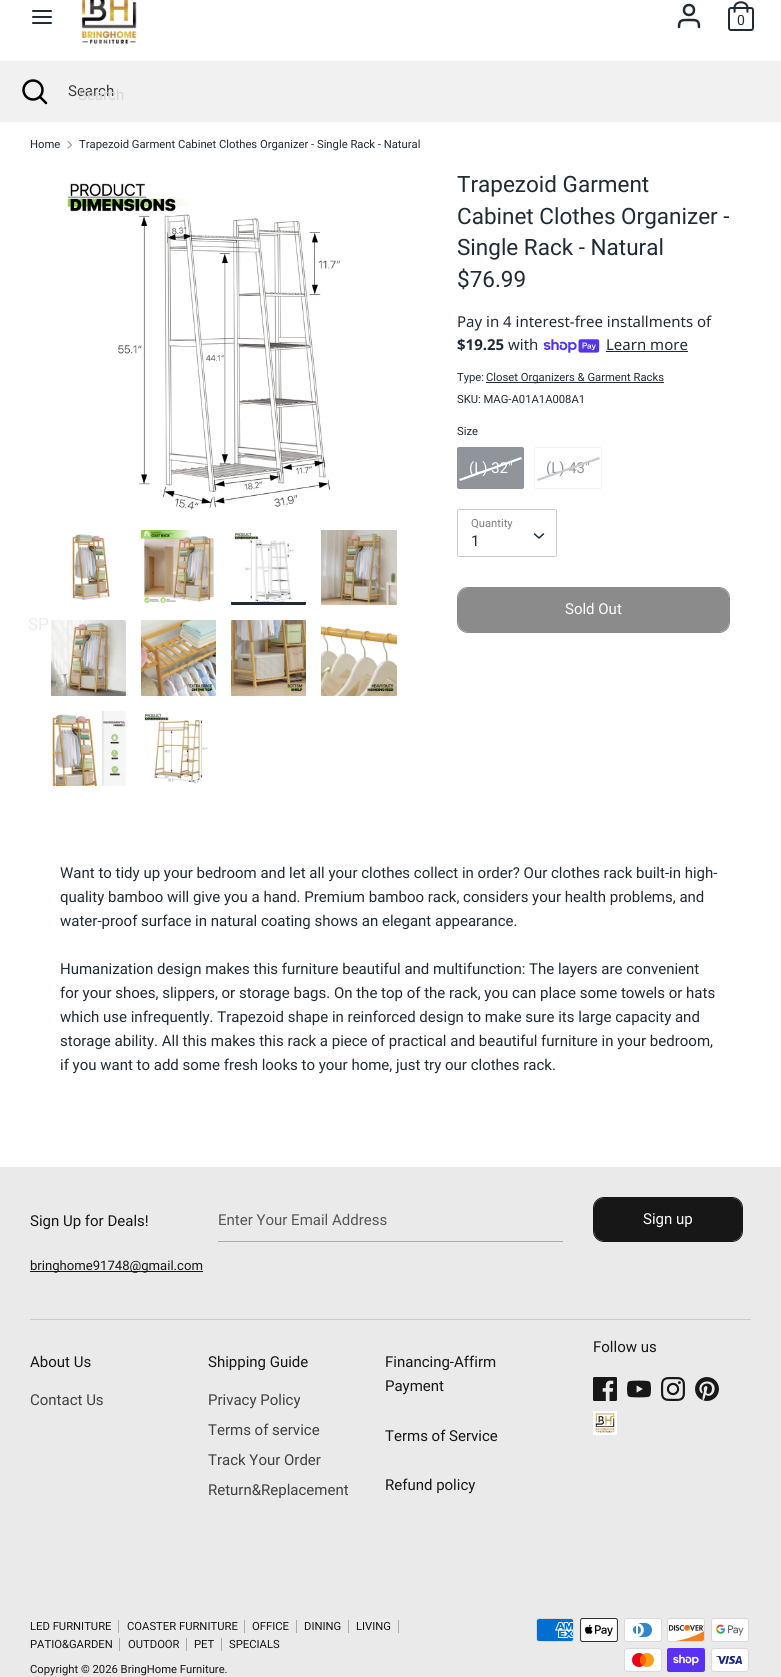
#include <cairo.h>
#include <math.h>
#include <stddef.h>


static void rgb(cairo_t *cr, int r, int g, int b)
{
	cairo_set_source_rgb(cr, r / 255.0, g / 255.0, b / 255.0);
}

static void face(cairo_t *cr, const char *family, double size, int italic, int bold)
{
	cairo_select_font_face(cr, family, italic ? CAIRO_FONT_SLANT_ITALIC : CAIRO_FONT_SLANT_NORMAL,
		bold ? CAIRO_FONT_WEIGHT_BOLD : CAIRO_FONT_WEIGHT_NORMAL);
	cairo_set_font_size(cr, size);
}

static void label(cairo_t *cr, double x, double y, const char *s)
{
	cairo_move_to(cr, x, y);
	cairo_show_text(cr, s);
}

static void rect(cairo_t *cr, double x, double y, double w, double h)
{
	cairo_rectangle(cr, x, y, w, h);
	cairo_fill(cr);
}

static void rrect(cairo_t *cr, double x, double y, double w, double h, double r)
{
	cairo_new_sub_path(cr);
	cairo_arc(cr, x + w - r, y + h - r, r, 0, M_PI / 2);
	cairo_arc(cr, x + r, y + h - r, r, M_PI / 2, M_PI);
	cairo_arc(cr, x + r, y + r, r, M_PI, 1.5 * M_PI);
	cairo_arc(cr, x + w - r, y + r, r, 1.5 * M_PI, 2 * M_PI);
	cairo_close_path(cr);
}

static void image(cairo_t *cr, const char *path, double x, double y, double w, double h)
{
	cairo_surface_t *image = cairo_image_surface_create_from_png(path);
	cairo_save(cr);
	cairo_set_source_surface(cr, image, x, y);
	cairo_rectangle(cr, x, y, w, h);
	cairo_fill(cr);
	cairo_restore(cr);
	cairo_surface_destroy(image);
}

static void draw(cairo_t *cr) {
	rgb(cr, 255, 255, 255);
	cairo_paint(cr);
	cairo_new_path(cr);
	cairo_move_to(cr, 33, 17);
	cairo_line_to(cr, 51, 17);
	cairo_move_to(cr, 33, 11);
	cairo_line_to(cr, 51, 11);
	cairo_move_to(cr, 33, 23);
	cairo_line_to(cr, 51, 23);
	rgb(cr, 33, 43, 54);
	cairo_set_line_cap(cr, CAIRO_LINE_CAP_ROUND);
	cairo_stroke(cr);
	image(cr, "image0.png", 81, 0, 56, 44);
	cairo_new_path(cr);
	cairo_move_to(cr, 699, 27);
	cairo_curve_to(cr, 699, 19.5, 696, 20, 689, 20);
	cairo_curve_to(cr, 682, 20, 679, 19.5, 679, 27);
	cairo_set_line_width(cr, 2.5);
	cairo_stroke(cr);
	cairo_arc(cr, 689, 10, 5, 0, 2 * M_PI);
	cairo_set_line_cap(cr, CAIRO_LINE_CAP_BUTT);
	cairo_stroke(cr);
	image(cr, "image1.png", 728, 1, 26, 30);
	face(cr, "Roboto", 14, 0, 0);
	label(cr, 737, 25, "0");
	rgb(cr, 241, 241, 241);
	rect(cr, 0, 61, 781, 61);
	cairo_new_path(cr);
	cairo_arc(cr, 33, 90, 9.5, 0, 2 * M_PI);
	rgb(cr, 0, 0, 0);
	cairo_stroke(cr);
	cairo_new_path(cr);
	cairo_move_to(cr, 46, 103);
	cairo_line_to(cr, 40, 97);
	cairo_set_line_cap(cr, CAIRO_LINE_CAP_ROUND);
	cairo_stroke(cr);
	face(cr, "Roboto", 15, 0, 0);
	rgb(cr, 60, 60, 60);
	label(cr, 68, 96, "Search");
	rgb(cr, 216, 216, 216);
	label(cr, 78, 100, "Search");
	face(cr, "Roboto", 17, 0, 0);
	rgb(cr, 239, 236, 231);
	label(cr, 28, 630, "SP");
	face(cr, "Roboto", 11.25, 0, 0);
	rgb(cr, 33, 43, 54);
	label(cr, 30, 148, "Home");
	cairo_new_path(cr);
	cairo_move_to(cr, 68, 148);
	cairo_line_to(cr, 71.5, 145);
	cairo_line_to(cr, 68, 141.5);
	rgb(cr, 144, 149, 155);
	cairo_set_line_width(cr, 1.1);
	cairo_stroke(cr);
	rgb(cr, 33, 43, 54);
	label(cr, 79, 148, "Trapezoid Garment Cabinet Clothes Organizer - Single Rack - Natural");
	image(cr, "image2.png", 67, 182, 273, 328);
	image(cr, "image3.png", 72, 534, 38, 67);
	image(cr, "image4.png", 141, 530, 73, 74);
	image(cr, "image5.png", 234, 532, 60, 70);
	cairo_new_path(cr);
	cairo_move_to(cr, 231, 602);
	cairo_line_to(cr, 306, 602);
	cairo_line_to(cr, 306, 604);
	cairo_curve_to(cr, 306, 604.5, 305.5, 605, 305, 605);
	cairo_line_to(cr, 232, 605);
	cairo_curve_to(cr, 231.5, 605, 231, 604.5, 231, 604);
	cairo_close_path(cr);
	cairo_fill(cr);
	image(cr, "image6.png", 321, 530, 76, 75);
	image(cr, "image7.png", 51, 620, 75, 76);
	image(cr, "image8.png", 141, 620, 75, 76);
	image(cr, "image9.png", 231, 620, 75, 76);
	image(cr, "image10.png", 321, 626, 76, 70);
	image(cr, "image11.png", 52, 711, 74, 75);
	image(cr, "image12.png", 144, 713, 64, 71);
	face(cr, "Roboto", 22.5, 0, 0);
	label(cr, 457, 192, "Trapezoid Garment");
	label(cr, 457, 224, "Cabinet Clothes Organizer -");
	label(cr, 457, 255, "Single Rack - Natural");
	label(cr, 457, 287, "$76.99");
	face(cr, "Noto Sans", 15, 0, 0);
	label(cr, 457, 327, "Pay in 4 interest-free installments of");
	face(cr, "Noto Sans", 15, 0, 1);
	label(cr, 457, 350, "$19.25");
	face(cr, "Noto Sans", 15, 0, 0);
	label(cr, 508, 350, "with");
	image(cr, "image13.png", 543, 339, 57, 14);
	label(cr, 606, 350, "Learn more");
	rect(cr, 606, 351, 82, 1);
	face(cr, "Roboto", 11.25, 0, 0);
	label(cr, 457, 381, "Type:");
	rect(cr, 486, 382, 178, 1);
	label(cr, 486, 381, "Closet Organizers & Garment Racks");
	label(cr, 457, 403, "SKU: MAG-A01A1A008A1");
	label(cr, 457, 435, "Size");
	rgb(cr, 144, 149, 155);
	rrect(cr, 457.5, 447.5, 66, 41, 1.5);
	cairo_fill_preserve(cr);
	cairo_set_line_width(cr, 1);
	cairo_set_line_cap(cr, CAIRO_LINE_CAP_BUTT);
	cairo_stroke(cr);
	rgb(cr, 255, 255, 255);
	cairo_new_path(cr);
	cairo_move_to(cr, 459, 479);
	cairo_line_to(cr, 521, 457);
	cairo_line_to(cr, 522, 459);
	cairo_line_to(cr, 460, 481);
	cairo_close_path(cr);
	cairo_fill(cr);
	face(cr, "Roboto", 15, 0, 0);
	label(cr, 469, 473, "(L) 32\"");
	rrect(cr, 534.5, 447.5, 67, 41, 1.5);
	rgb(cr, 242, 242, 242);
	cairo_stroke(cr);
	rgb(cr, 144, 149, 155);
	label(cr, 546, 473, "(L) 43\"");
	rgb(cr, 200, 202, 205);
	cairo_new_path(cr);
	cairo_move_to(cr, 537, 479);
	cairo_line_to(cr, 599, 457);
	cairo_line_to(cr, 600, 459);
	cairo_line_to(cr, 538, 481);
	cairo_close_path(cr);
	cairo_fill(cr);
	rrect(cr, 457.5, 509.5, 99, 47, 1.5);
	cairo_stroke(cr);
	face(cr, "Roboto", 11.25, 0, 0);
	rgb(cr, 122, 128, 134);
	label(cr, 471, 527, "Quantity");
	face(cr, "Roboto", 15, 0, 0);
	rgb(cr, 33, 43, 54);
	label(cr, 471, 546, "1");
	cairo_new_path(cr);
	cairo_move_to(cr, 534.5, 534);
	cairo_line_to(cr, 539, 538);
	cairo_line_to(cr, 543.5, 534);
	cairo_set_line_width(cr, 1.5);
	cairo_set_line_cap(cr, CAIRO_LINE_CAP_ROUND);
	cairo_set_line_join(cr, CAIRO_LINE_JOIN_ROUND);
	cairo_stroke(cr);
	rrect(cr, 457.5, 587.5, 272, 45, 10.5);
	rgb(cr, 139, 139, 140);
	cairo_set_line_width(cr, 1);
	cairo_set_line_cap(cr, CAIRO_LINE_CAP_BUTT);
	cairo_set_line_join(cr, CAIRO_LINE_JOIN_MITER);
	cairo_stroke(cr);
	rrect(cr, 458, 588, 271, 44, 10);
	cairo_fill(cr);
	rgb(cr, 255, 255, 255);
	label(cr, 565, 614, "Sold Out");
	rgb(cr, 33, 43, 54);
	label(cr, 60, 878, "Want to tidy up your bedroom and let all your clothes collect in order? Our clothes rack built-in high-");
	label(cr, 60, 902, "quality bamboo will give you a hand. Premium bamboo rack, considers your health problems, and");
	label(cr, 60, 926, "water-proof surface in natural coating shows an elegant appearance.");
	label(cr, 60, 974, "Humanization design makes this furniture beautiful and multifunction: The layers are convenient");
	label(cr, 60, 998, "for your shoes, slippers, or storage bags. On the top of the rack, you can place some towels or hats");
	label(cr, 60, 1022, "which use infrequently. Trapezoid shape in reinforced design to make sure its large capacity and");
	label(cr, 60, 1046, "storage ability. All this makes this rack a piece of practical and beautiful furniture in your bedroom,");
	label(cr, 60, 1070, "if you want to add some fresh looks to your home, just try our clothes rack.");
	rgb(cr, 234, 234, 234);
	rect(cr, 0, 1167, 781, 510);
	rgb(cr, 23, 23, 24);
	label(cr, 30, 1226, "Sign Up for Deals!");
	rgb(cr, 171, 171, 171);
	rect(cr, 218, 1241, 345, 1);
	rgb(cr, 86, 86, 87);
	label(cr, 218, 1225, "Enter Your Email Address");
	rrect(cr, 593.5, 1197.5, 149, 44, 10.5);
	rgb(cr, 23, 23, 24);
	cairo_stroke(cr);
	rrect(cr, 594, 1198, 148, 43, 10);
	cairo_fill(cr);
	rgb(cr, 255, 255, 255);
	label(cr, 643, 1224, "Sign up");
	rgb(cr, 23, 23, 24);
	rect(cr, 30, 1271, 173, 1);
	face(cr, "Roboto", 13.1, 0, 0);
	label(cr, 30, 1270, "bringhome91748@gmail.com");
	rgb(cr, 203, 203, 203);
	rect(cr, 30, 1319, 721, 1);
	face(cr, "Roboto", 15, 0, 0);
	rgb(cr, 23, 23, 24);
	label(cr, 593, 1352, "Follow us");
	image(cr, "image14.png", 593, 1377, 24, 24);
	image(cr, "image15.png", 627, 1380, 24, 18);
	image(cr, "image16.png", 661, 1377, 24, 24);
	image(cr, "image17.png", 695, 1377, 24, 24);
	image(cr, "image18.png", 593, 1411, 24, 24);
	label(cr, 30, 1367, "About Us");
	rgb(cr, 65, 65, 66);
	label(cr, 30, 1405, "Contact Us");
	rgb(cr, 23, 23, 24);
	label(cr, 208, 1367, "Shipping Guide");
	rgb(cr, 65, 65, 66);
	label(cr, 208, 1405, "Privacy Policy");
	label(cr, 208, 1435, "Terms of service");
	label(cr, 208, 1465, "Track Your Order");
	label(cr, 208, 1495, "Return&Replacement");
	rgb(cr, 23, 23, 24);
	label(cr, 385, 1367, "Financing-Affirm");
	label(cr, 385, 1391, "Payment");
	label(cr, 385, 1441, "Terms of Service");
	label(cr, 385, 1490, "Refund policy");
	face(cr, "Roboto", 11.25, 0, 0);
	label(cr, 30, 1630, "LED FURNITURE");
	rgb(cr, 171, 171, 171);
	rect(cr, 118, 1620, 1, 13);
	rgb(cr, 23, 23, 24);
	label(cr, 127, 1630, "COASTER FURNITURE");
	rgb(cr, 171, 171, 171);
	rect(cr, 244, 1620, 1, 13);
	rgb(cr, 23, 23, 24);
	label(cr, 252, 1630, "OFFICE");
	rgb(cr, 171, 171, 171);
	rect(cr, 296, 1620, 1, 13);
	rgb(cr, 23, 23, 24);
	label(cr, 304, 1630, "DINING");
	rgb(cr, 171, 171, 171);
	rect(cr, 348, 1620, 1, 13);
	rgb(cr, 23, 23, 24);
	label(cr, 356, 1630, "LIVING");
	rgb(cr, 171, 171, 171);
	rect(cr, 398, 1620, 1, 13);
	rgb(cr, 23, 23, 24);
	label(cr, 30, 1648, "PATIO&GARDEN");
	rgb(cr, 171, 171, 171);
	rect(cr, 119, 1638, 1, 13);
	rgb(cr, 23, 23, 24);
	label(cr, 128, 1648, "OUTDOOR");
	rgb(cr, 171, 171, 171);
	rect(cr, 186, 1638, 1, 13);
	rgb(cr, 23, 23, 24);
	label(cr, 194, 1648, "PET");
	rgb(cr, 171, 171, 171);
	rect(cr, 221, 1638, 1, 13);
	rgb(cr, 23, 23, 24);
	label(cr, 229, 1648, "SPECIALS");
	label(cr, 30, 1673, "Copyright © 2026 BringHome Furniture.");
	image(cr, "image19.png", 536, 1618, 38, 24);
	image(cr, "image20.png", 580, 1618, 38, 24);
	image(cr, "image21.png", 624, 1618, 38, 24);
	image(cr, "image22.png", 667, 1618, 38, 24);
	image(cr, "image23.png", 711, 1618, 38, 24);
	image(cr, "image24.png", 624, 1648, 38, 24);
	image(cr, "image25.png", 667, 1648, 38, 24);
	image(cr, "image26.png", 711, 1648, 38, 24);
}

int main(void) {
	cairo_surface_t *surface = cairo_image_surface_create(CAIRO_FORMAT_RGB24, 781, 1677);
	cairo_t *cr = cairo_create(surface);
	cairo_font_options_t *options = cairo_font_options_create();
	cairo_font_options_set_hint_metrics(options, CAIRO_HINT_METRICS_OFF);
	cairo_font_options_set_hint_style(options, CAIRO_HINT_STYLE_NONE);
	cairo_set_font_options(cr, options);
	cairo_set_miter_limit(cr, 4);
	draw(cr);
	cairo_surface_write_to_png(surface, "render.png");
	cairo_font_options_destroy(options);
	cairo_destroy(cr);
	cairo_surface_destroy(surface);
	return 0;
}
